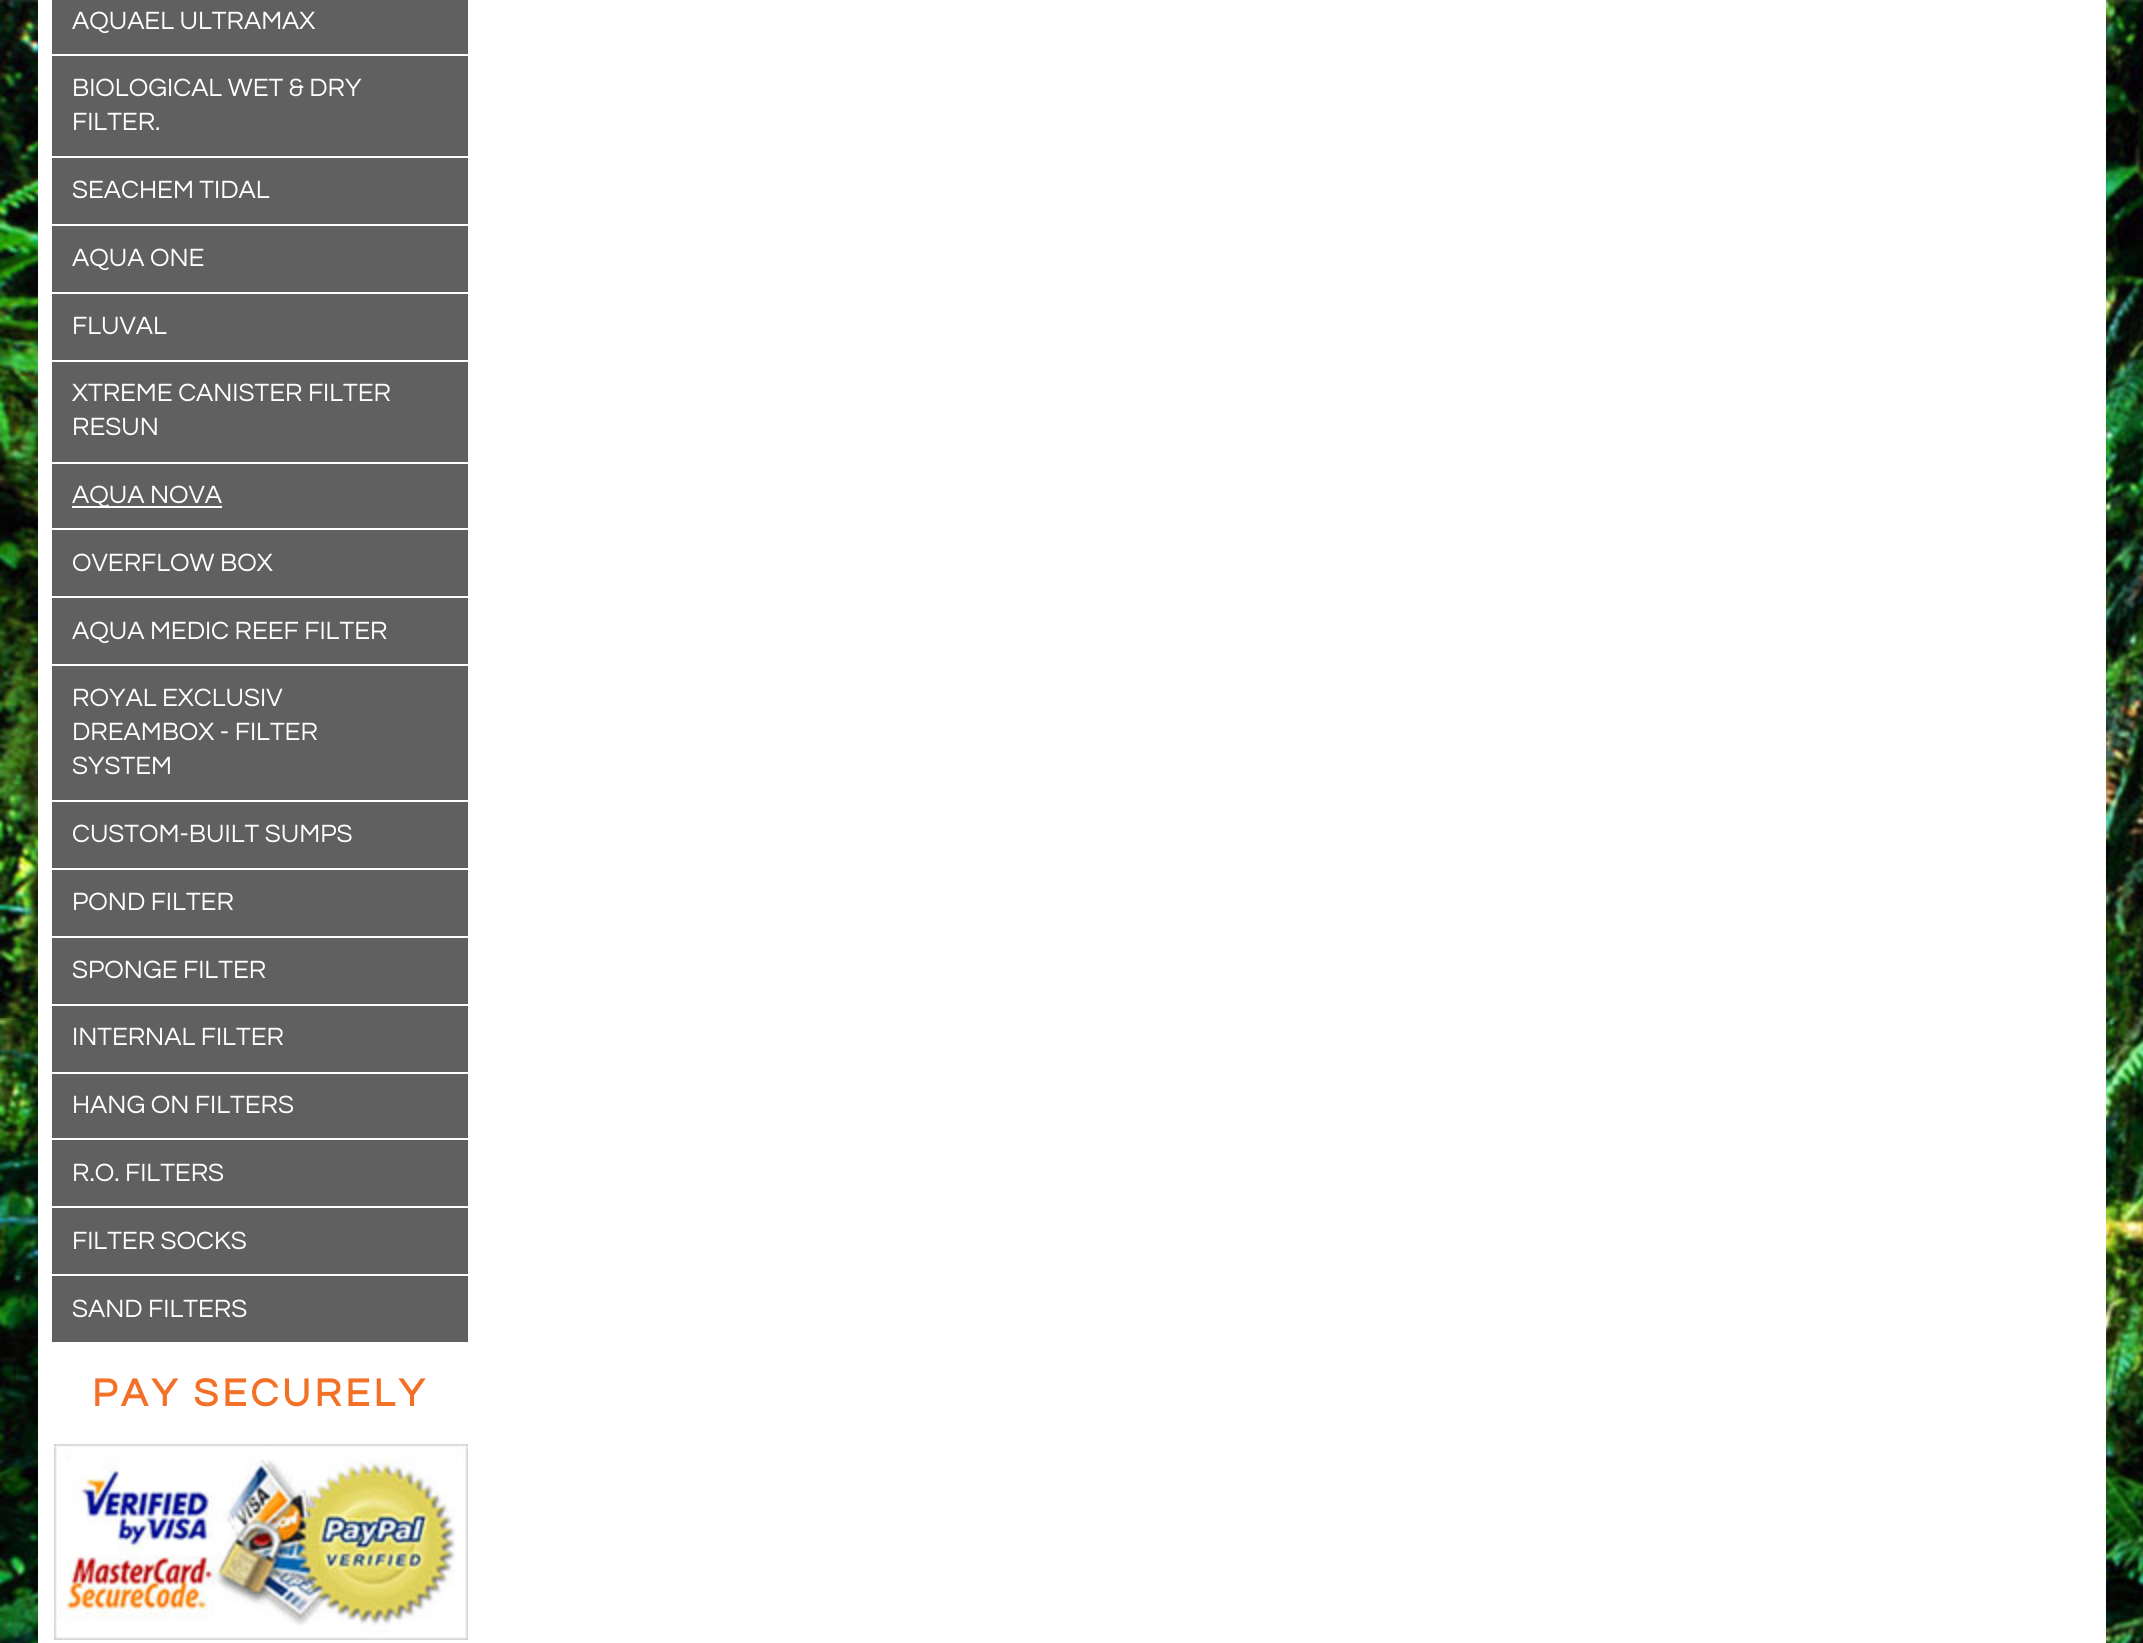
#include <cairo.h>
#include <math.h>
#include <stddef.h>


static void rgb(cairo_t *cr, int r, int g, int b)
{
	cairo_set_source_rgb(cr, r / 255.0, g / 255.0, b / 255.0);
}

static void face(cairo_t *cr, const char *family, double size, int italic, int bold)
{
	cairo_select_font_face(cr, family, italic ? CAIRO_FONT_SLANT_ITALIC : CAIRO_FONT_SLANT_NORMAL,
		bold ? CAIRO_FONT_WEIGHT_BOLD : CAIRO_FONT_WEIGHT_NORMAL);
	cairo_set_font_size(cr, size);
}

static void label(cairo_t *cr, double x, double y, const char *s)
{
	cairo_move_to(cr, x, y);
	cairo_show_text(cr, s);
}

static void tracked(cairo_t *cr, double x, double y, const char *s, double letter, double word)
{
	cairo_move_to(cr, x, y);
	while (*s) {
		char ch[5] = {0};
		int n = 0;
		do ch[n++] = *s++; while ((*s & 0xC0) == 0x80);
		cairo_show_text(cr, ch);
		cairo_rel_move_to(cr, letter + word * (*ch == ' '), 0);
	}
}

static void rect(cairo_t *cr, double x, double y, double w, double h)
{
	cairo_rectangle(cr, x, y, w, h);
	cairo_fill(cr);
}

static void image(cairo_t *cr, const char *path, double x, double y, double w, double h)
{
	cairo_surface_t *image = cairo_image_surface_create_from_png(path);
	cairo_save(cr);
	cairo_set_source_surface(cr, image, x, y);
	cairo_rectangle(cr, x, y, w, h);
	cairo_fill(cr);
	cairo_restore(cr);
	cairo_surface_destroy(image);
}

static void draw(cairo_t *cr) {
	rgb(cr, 255, 255, 255);
	cairo_paint(cr);
	image(cr, "image0.png", 0, 0, 2143, 1643);
	rgb(cr, 255, 255, 255);
	rect(cr, 38, 0, 2068, 1643);
	rgb(cr, 96, 96, 96);
	rect(cr, 52, 0, 416, 54);
	face(cr, "Questrial", 26, 0, 0);
	rgb(cr, 255, 255, 255);
	label(cr, 72, 29, "AQUAEL ULTRAMAX");
	rgb(cr, 96, 96, 96);
	rect(cr, 52, 56, 416, 100);
	rgb(cr, 255, 255, 255);
	label(cr, 72, 96, "BIOLOGICAL WET & DRY");
	label(cr, 72, 130, "FILTER.");
	rgb(cr, 96, 96, 96);
	rect(cr, 52, 158, 416, 66);
	rgb(cr, 255, 255, 255);
	label(cr, 72, 198, "SEACHEM TIDAL");
	rgb(cr, 96, 96, 96);
	rect(cr, 52, 226, 416, 66);
	rgb(cr, 255, 255, 255);
	label(cr, 72, 266, "AQUA ONE");
	rgb(cr, 96, 96, 96);
	rect(cr, 52, 294, 416, 66);
	rgb(cr, 255, 255, 255);
	label(cr, 72, 334, "FLUVAL");
	rgb(cr, 96, 96, 96);
	rect(cr, 52, 362, 416, 100);
	rgb(cr, 255, 255, 255);
	label(cr, 72, 401, "XTREME CANISTER FILTER");
	label(cr, 72, 435, "RESUN");
	rgb(cr, 96, 96, 96);
	rect(cr, 52, 464, 416, 64);
	rgb(cr, 255, 255, 255);
	rect(cr, 72, 506, 150, 2);
	label(cr, 72, 503, "AQUA NOVA");
	rgb(cr, 96, 96, 96);
	rect(cr, 52, 530, 416, 66);
	rgb(cr, 255, 255, 255);
	label(cr, 72, 571, "OVERFLOW BOX");
	rgb(cr, 96, 96, 96);
	rect(cr, 52, 598, 416, 66);
	rgb(cr, 255, 255, 255);
	label(cr, 72, 639, "AQUA MEDIC REEF FILTER");
	rgb(cr, 96, 96, 96);
	rect(cr, 52, 666, 416, 134);
	rgb(cr, 255, 255, 255);
	label(cr, 72, 706, "ROYAL EXCLUSIV");
	label(cr, 72, 740, "DREAMBOX - FILTER");
	label(cr, 72, 774, "SYSTEM");
	rgb(cr, 96, 96, 96);
	rect(cr, 52, 802, 416, 66);
	rgb(cr, 255, 255, 255);
	label(cr, 72, 842, "CUSTOM-BUILT SUMPS");
	rgb(cr, 96, 96, 96);
	rect(cr, 52, 870, 416, 66);
	rgb(cr, 255, 255, 255);
	label(cr, 72, 910, "POND FILTER");
	rgb(cr, 96, 96, 96);
	rect(cr, 52, 938, 416, 66);
	rgb(cr, 255, 255, 255);
	label(cr, 72, 978, "SPONGE FILTER");
	rgb(cr, 96, 96, 96);
	rect(cr, 52, 1006, 416, 66);
	rgb(cr, 255, 255, 255);
	label(cr, 72, 1045, "INTERNAL FILTER");
	rgb(cr, 96, 96, 96);
	rect(cr, 52, 1074, 416, 64);
	rgb(cr, 255, 255, 255);
	label(cr, 72, 1113, "HANG ON FILTERS");
	rgb(cr, 96, 96, 96);
	rect(cr, 52, 1140, 416, 66);
	rgb(cr, 255, 255, 255);
	label(cr, 72, 1181, "R.O. FILTERS");
	rgb(cr, 96, 96, 96);
	rect(cr, 52, 1208, 416, 66);
	rgb(cr, 255, 255, 255);
	label(cr, 72, 1249, "FILTER SOCKS");
	rgb(cr, 96, 96, 96);
	rect(cr, 52, 1276, 416, 66);
	rgb(cr, 255, 255, 255);
	label(cr, 72, 1317, "SAND FILTERS");
	face(cr, "Questrial", 40, 0, 1);
	rgb(cr, 243, 112, 39);
	tracked(cr, 92, 1406, "PAY SECURELY", 4, 0);
	image(cr, "image1.png", 54, 1444, 414, 196);
}

int main(void) {
	cairo_surface_t *surface = cairo_image_surface_create(CAIRO_FORMAT_RGB24, 2143, 1643);
	cairo_t *cr = cairo_create(surface);
	cairo_font_options_t *options = cairo_font_options_create();
	cairo_font_options_set_hint_metrics(options, CAIRO_HINT_METRICS_OFF);
	cairo_font_options_set_hint_style(options, CAIRO_HINT_STYLE_NONE);
	cairo_set_font_options(cr, options);
	cairo_set_miter_limit(cr, 4);
	draw(cr);
	cairo_surface_write_to_png(surface, "render.png");
	cairo_font_options_destroy(options);
	cairo_destroy(cr);
	cairo_surface_destroy(surface);
	return 0;
}
